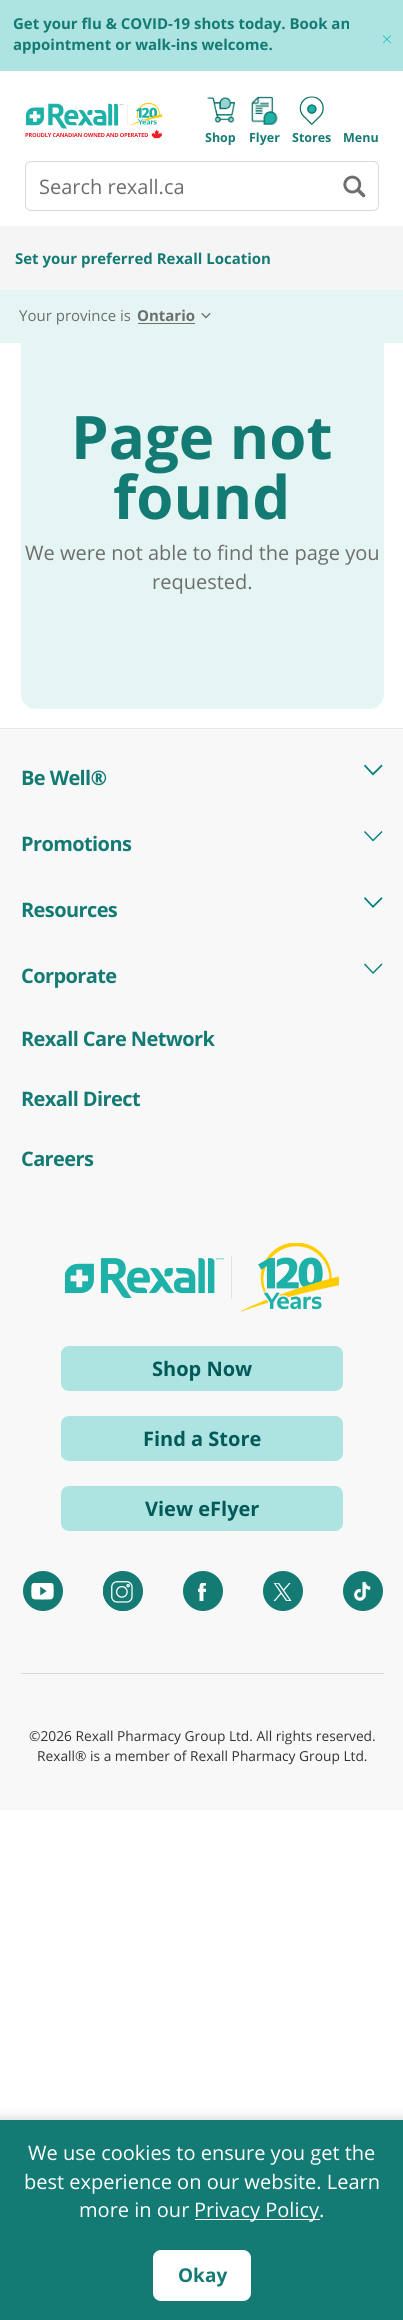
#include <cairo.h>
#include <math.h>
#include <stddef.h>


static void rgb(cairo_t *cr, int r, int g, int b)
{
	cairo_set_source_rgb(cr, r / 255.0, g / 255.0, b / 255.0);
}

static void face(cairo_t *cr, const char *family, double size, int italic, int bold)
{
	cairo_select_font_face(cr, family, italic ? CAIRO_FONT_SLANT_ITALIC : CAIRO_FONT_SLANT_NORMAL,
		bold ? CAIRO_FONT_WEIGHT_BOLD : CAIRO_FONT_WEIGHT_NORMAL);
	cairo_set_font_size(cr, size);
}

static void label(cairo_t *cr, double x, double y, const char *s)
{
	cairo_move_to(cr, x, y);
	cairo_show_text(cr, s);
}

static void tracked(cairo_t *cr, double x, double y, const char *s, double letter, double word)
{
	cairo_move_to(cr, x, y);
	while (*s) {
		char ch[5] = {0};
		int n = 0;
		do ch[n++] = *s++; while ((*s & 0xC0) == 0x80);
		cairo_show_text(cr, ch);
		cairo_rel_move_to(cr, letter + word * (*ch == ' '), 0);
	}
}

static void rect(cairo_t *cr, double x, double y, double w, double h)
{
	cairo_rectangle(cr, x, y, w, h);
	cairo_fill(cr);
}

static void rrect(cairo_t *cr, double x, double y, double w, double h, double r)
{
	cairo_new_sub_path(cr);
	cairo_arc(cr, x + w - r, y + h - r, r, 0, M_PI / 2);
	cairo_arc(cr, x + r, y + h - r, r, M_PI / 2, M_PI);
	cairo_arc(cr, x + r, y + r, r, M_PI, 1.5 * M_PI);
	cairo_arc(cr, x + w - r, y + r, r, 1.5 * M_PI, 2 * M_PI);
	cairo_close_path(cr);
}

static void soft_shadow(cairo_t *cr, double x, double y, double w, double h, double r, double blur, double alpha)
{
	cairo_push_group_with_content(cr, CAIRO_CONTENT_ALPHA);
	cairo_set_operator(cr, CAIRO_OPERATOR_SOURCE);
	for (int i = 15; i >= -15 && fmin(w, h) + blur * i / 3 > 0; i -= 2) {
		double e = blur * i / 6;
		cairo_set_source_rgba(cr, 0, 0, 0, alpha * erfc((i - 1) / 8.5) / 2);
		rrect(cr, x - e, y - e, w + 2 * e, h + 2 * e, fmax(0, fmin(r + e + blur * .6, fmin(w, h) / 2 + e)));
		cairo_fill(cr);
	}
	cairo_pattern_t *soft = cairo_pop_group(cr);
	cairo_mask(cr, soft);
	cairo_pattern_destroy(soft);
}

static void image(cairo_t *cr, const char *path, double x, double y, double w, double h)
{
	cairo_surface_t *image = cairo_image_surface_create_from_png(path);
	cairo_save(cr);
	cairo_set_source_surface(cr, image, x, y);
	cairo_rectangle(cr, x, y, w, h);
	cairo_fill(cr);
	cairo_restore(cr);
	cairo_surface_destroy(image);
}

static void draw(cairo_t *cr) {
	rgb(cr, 255, 255, 255);
	cairo_paint(cr);
	rgb(cr, 173, 227, 225);
	rect(cr, 0, 0, 403, 71);
	face(cr, "Open Sans", 15, 0, 1);
	rgb(cr, 20, 123, 116);
	label(cr, 13, 29, "Get your flu & COVID-19 shots today. Book an");
	label(cr, 13, 50, "appointment or walk-ins welcome.");
	image(cr, "image0.png", 383, 35, 8, 9);
	image(cr, "image1.png", 25, 103, 138, 36);
	image(cr, "image2.png", 207, 97, 28, 26);
	face(cr, "Open Sans", 12.5, 0, 1);
	label(cr, 205, 142, "Shop");
	image(cr, "image3.png", 251, 96, 27, 29);
	label(cr, 249, 142, "Flyer");
	image(cr, "image4.png", 299, 96, 25, 29);
	label(cr, 292, 142, "Stores");
	label(cr, 343, 142, "Menu");
	rrect(cr, 25.5, 161.5, 353, 49, 5.5);
	rgb(cr, 217, 217, 217);
	cairo_set_line_width(cr, 1);
	cairo_stroke(cr);
	face(cr, "Open Sans", 20, 0, 0);
	rgb(cr, 109, 109, 109);
	label(cr, 39, 194, "Search rexall.ca");
	image(cr, "image5.png", 343, 175, 23, 23);
	rgb(cr, 245, 245, 245);
	rect(cr, 0, 226, 403, 64);
	face(cr, "Open Sans", 15, 0, 1);
	rgb(cr, 20, 123, 116);
	label(cr, 15, 264, "Set your preferred Rexall Location");
	rgb(cr, 229, 245, 244);
	rrect(cr, 21, 294, 363, 415, 15);
	cairo_fill(cr);
	rect(cr, 0, 290, 403, 53);
	face(cr, "Open Sans", 15, 0, 0);
	rgb(cr, 109, 109, 109);
	label(cr, 19, 321, "Your province is");
	face(cr, "Open Sans", 15, 0, 1);
	label(cr, 137, 321, "Ontario");
	rgb(cr, 110, 110, 110);
	rect(cr, 138, 323, 57, 1);
	image(cr, "image6.png", 201, 312, 10, 7);
	face(cr, "Open Sans", 60, 0, 1);
	rgb(cr, 20, 123, 116);
	label(cr, 71, 459, "Page not");
	label(cr, 113, 519, "found");
	face(cr, "Open Sans", 20, 0, 0);
	rgb(cr, 109, 109, 109);
	label(cr, 25, 560, "We were not able to find the page you");
	label(cr, 152, 589, "requested.");
	rgb(cr, 248, 248, 248);
	rect(cr, 0, 729, 403, 1081);
	rgb(cr, 232, 232, 232);
	rect(cr, 0, 728, 403, 1);
	face(cr, "Open Sans", 20, 0, 1);
	rgb(cr, 20, 123, 116);
	tracked(cr, 21, 785, "Be Well®", -0.6, 0);
	rgb(cr, 1, 126, 126);
	cairo_new_path(cr);
	cairo_move_to(cr, 381.5, 764.5);
	cairo_line_to(cr, 382.5, 766);
	cairo_line_to(cr, 373, 775.5);
	cairo_line_to(cr, 364, 766);
	cairo_line_to(cr, 365, 764.5);
	cairo_line_to(cr, 373, 773);
	cairo_close_path(cr);
	cairo_fill(cr);
	rgb(cr, 20, 123, 116);
	tracked(cr, 21, 851, "Promotions", -0.6, 0);
	rgb(cr, 1, 126, 126);
	cairo_new_path(cr);
	cairo_move_to(cr, 381.5, 831);
	cairo_line_to(cr, 382.5, 832);
	cairo_line_to(cr, 373, 841.5);
	cairo_line_to(cr, 364, 832);
	cairo_line_to(cr, 365, 831);
	cairo_line_to(cr, 373, 839.5);
	cairo_close_path(cr);
	cairo_fill(cr);
	rgb(cr, 20, 123, 116);
	tracked(cr, 21, 917, "Resources", -0.6, 0);
	rgb(cr, 1, 126, 126);
	cairo_new_path(cr);
	cairo_move_to(cr, 381.5, 897);
	cairo_line_to(cr, 382.5, 898.5);
	cairo_line_to(cr, 373, 908);
	cairo_line_to(cr, 364, 898.5);
	cairo_line_to(cr, 365, 897);
	cairo_line_to(cr, 373, 905.5);
	cairo_close_path(cr);
	cairo_fill(cr);
	rgb(cr, 20, 123, 116);
	tracked(cr, 21, 983, "Corporate", -0.6, 0);
	rgb(cr, 1, 126, 126);
	cairo_new_path(cr);
	cairo_move_to(cr, 381.5, 963.5);
	cairo_line_to(cr, 382.5, 964.5);
	cairo_line_to(cr, 373, 974);
	cairo_line_to(cr, 364, 964.5);
	cairo_line_to(cr, 365, 963.5);
	cairo_line_to(cr, 373, 972);
	cairo_close_path(cr);
	cairo_fill(cr);
	rgb(cr, 20, 123, 116);
	tracked(cr, 21, 1046, "Rexall Care Network", -0.6, 0);
	tracked(cr, 21, 1106, "Rexall Direct", -0.6, 0);
	tracked(cr, 21, 1166, "Careers", -0.6, 0);
	image(cr, "image7.png", 64, 1243, 275, 69);
	rgb(cr, 173, 227, 225);
	rrect(cr, 61, 1346, 282, 45, 8);
	cairo_fill(cr);
	rgb(cr, 0, 90, 90);
	label(cr, 152, 1376, "Shop Now");
	rgb(cr, 173, 227, 225);
	rrect(cr, 61, 1416, 282, 45, 8);
	cairo_fill(cr);
	rgb(cr, 0, 90, 90);
	label(cr, 143, 1446, "Find a Store");
	rgb(cr, 173, 227, 225);
	rrect(cr, 61, 1486, 282, 45, 8);
	cairo_fill(cr);
	rgb(cr, 0, 90, 90);
	label(cr, 145, 1516, "View eFlyer");
	rgb(cr, 20, 123, 116);
	cairo_new_path(cr);
	cairo_arc(cr, 43, 1591, 20, 0, 2 * M_PI);
	cairo_fill(cr);
	image(cr, "image8.png", 31, 1583, 23, 17);
	cairo_arc(cr, 123, 1591, 20, 0, 2 * M_PI);
	cairo_fill(cr);
	image(cr, "image9.png", 103, 1571, 40, 40);
	cairo_arc(cr, 203, 1591, 20, 0, 2 * M_PI);
	cairo_fill(cr);
	image(cr, "image10.png", 198, 1583, 8, 18);
	cairo_arc(cr, 283, 1591, 20, 0, 2 * M_PI);
	cairo_fill(cr);
	image(cr, "image11.png", 273, 1583, 19, 18);
	cairo_arc(cr, 363, 1591, 20, 0, 2 * M_PI);
	cairo_fill(cr);
	image(cr, "image12.png", 353, 1581, 18, 20);
	rgb(cr, 217, 217, 217);
	rect(cr, 21, 1673, 363, 1);
	face(cr, "Open Sans", 13.75, 0, 0);
	rgb(cr, 51, 51, 51);
	label(cr, 29, 1741, "©2026 Rexall Pharmacy Group Ltd. All rights reserved.");
	label(cr, 37, 1761, "Rexall® is a member of Rexall Pharmacy Group Ltd.");
	rgb(cr, 0, 0, 0);
	soft_shadow(cr, -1, 2119, 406, 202, 0, 6, 0.18);
	rgb(cr, 20, 123, 116);
	rect(cr, 0, 2120, 403, 200);
	face(cr, "Open Sans", 20, 0, 0);
	rgb(cr, 255, 255, 255);
	label(cr, 28, 2160, "We use cookies to ensure you get the");
	label(cr, 24, 2189, "best experience on our website. Learn");
	label(cr, 79, 2217, "more in our");
	rect(cr, 195, 2219, 125, 1);
	label(cr, 194, 2217, "Privacy Policy.");
	rrect(cr, 153, 2250, 98, 51, 8);
	cairo_fill(cr);
	face(cr, "Open Sans", 19, 0, 1);
	rgb(cr, 20, 123, 116);
	label(cr, 178, 2282, "Okay");
}

int main(void) {
	cairo_surface_t *surface = cairo_image_surface_create(CAIRO_FORMAT_RGB24, 403, 2320);
	cairo_t *cr = cairo_create(surface);
	cairo_font_options_t *options = cairo_font_options_create();
	cairo_font_options_set_hint_metrics(options, CAIRO_HINT_METRICS_OFF);
	cairo_font_options_set_hint_style(options, CAIRO_HINT_STYLE_NONE);
	cairo_set_font_options(cr, options);
	cairo_set_miter_limit(cr, 4);
	draw(cr);
	cairo_surface_write_to_png(surface, "render.png");
	cairo_font_options_destroy(options);
	cairo_destroy(cr);
	cairo_surface_destroy(surface);
	return 0;
}
